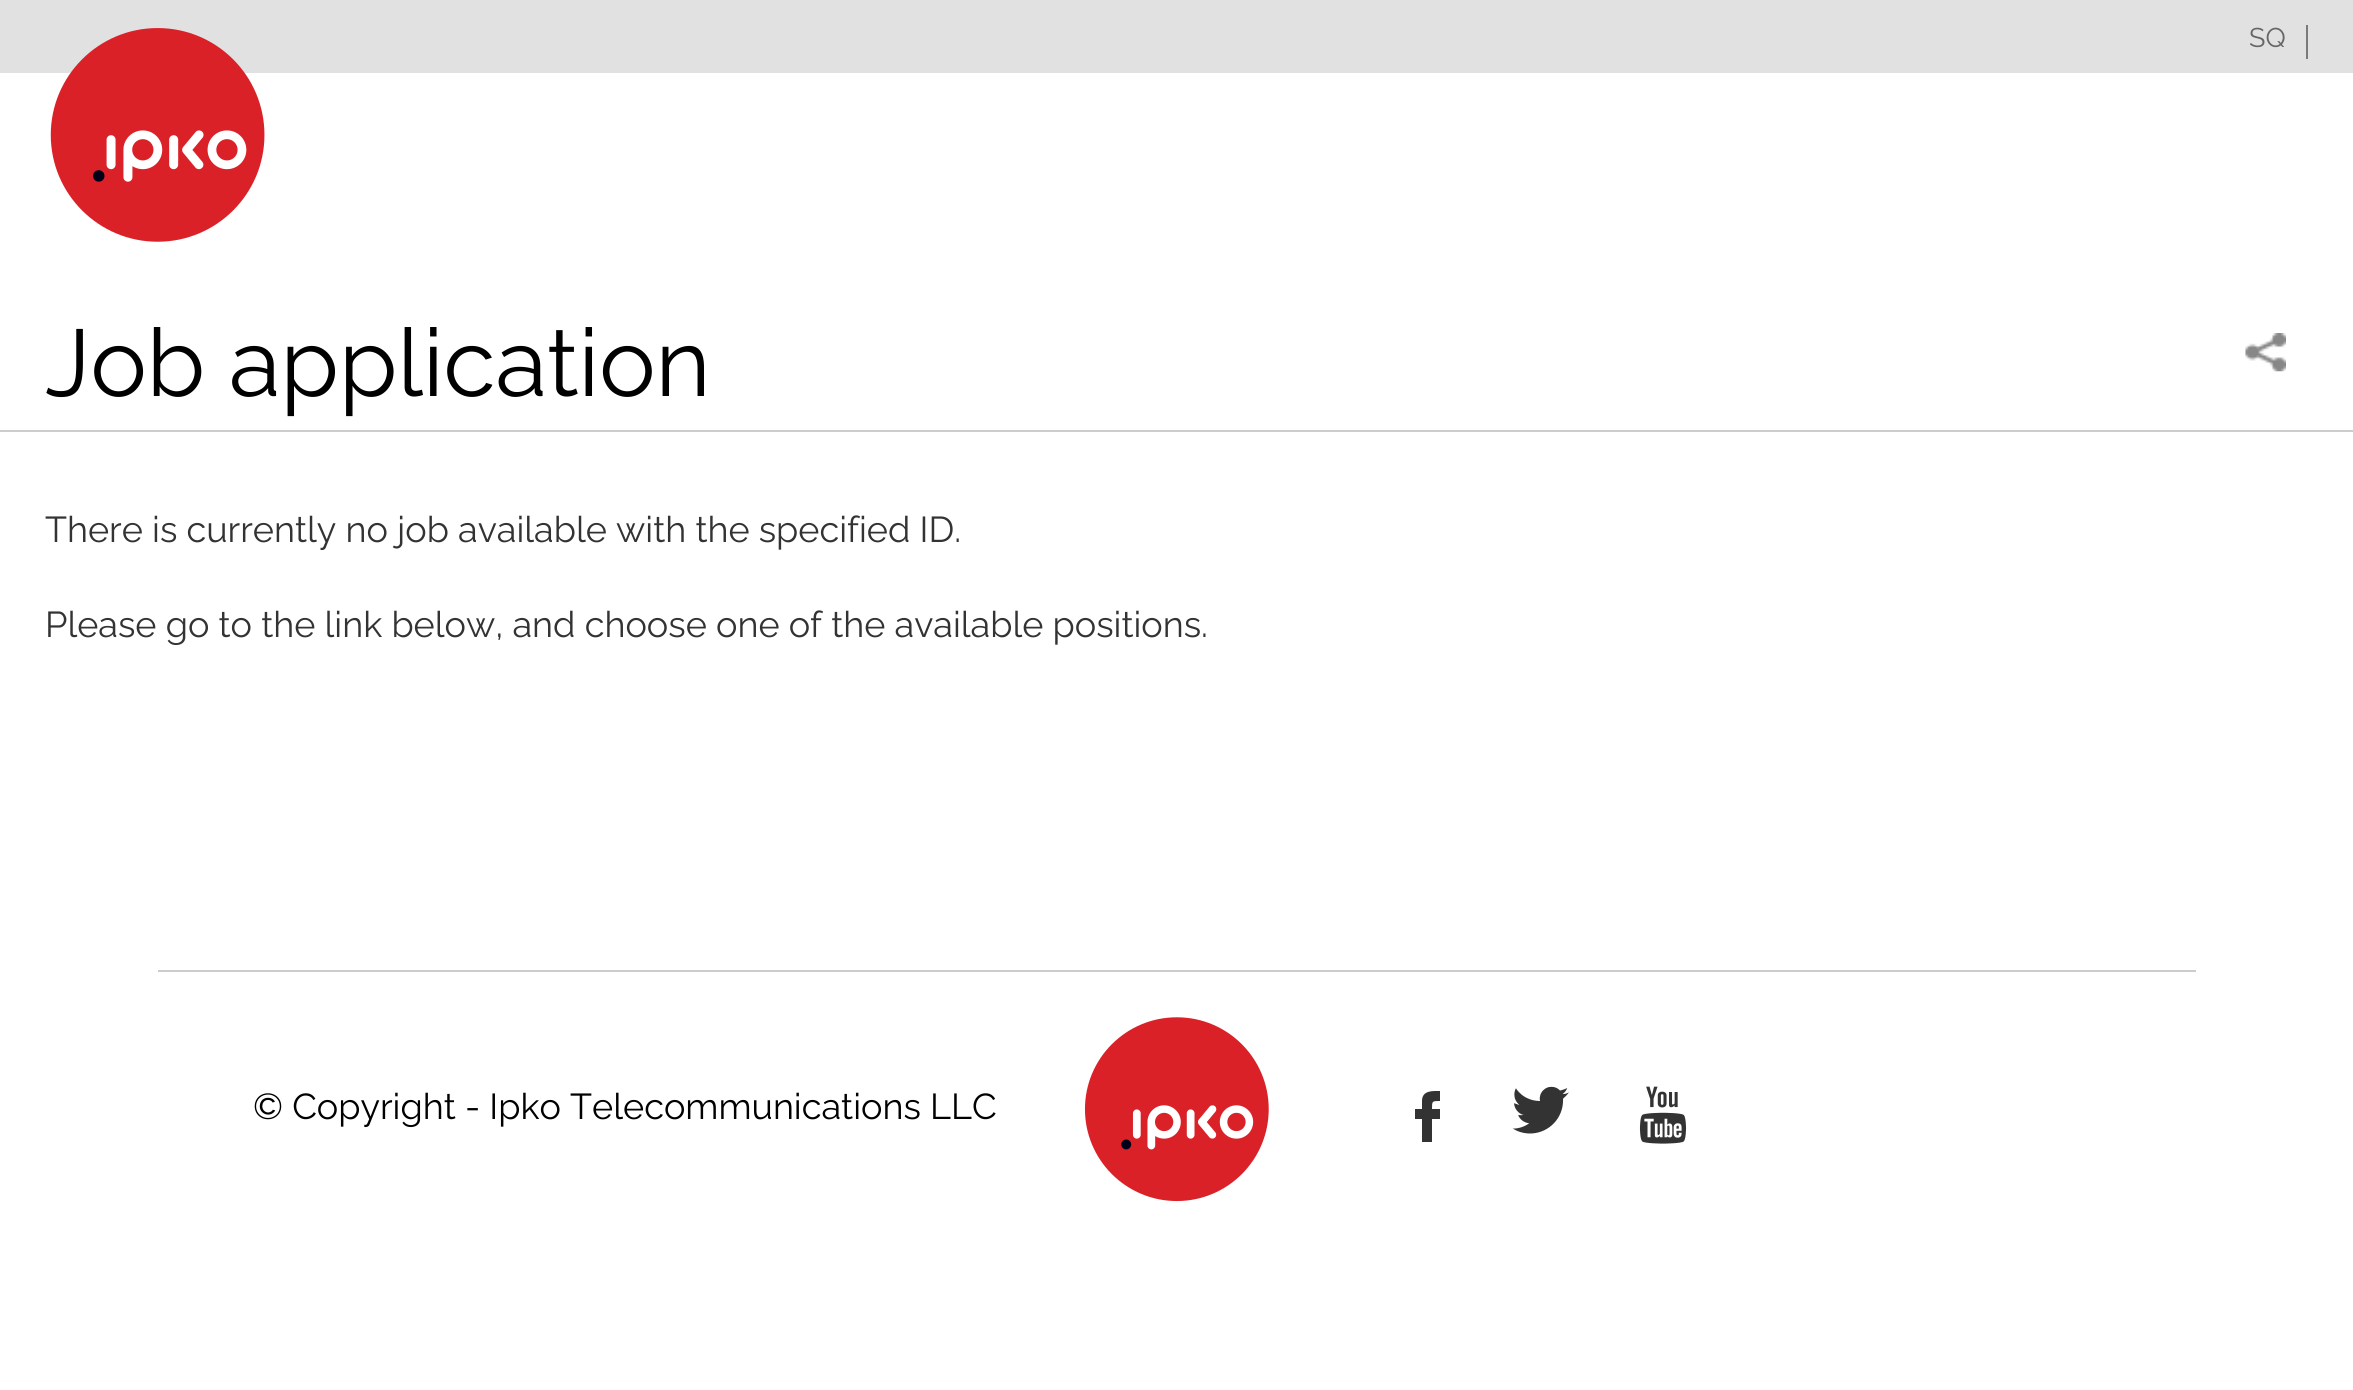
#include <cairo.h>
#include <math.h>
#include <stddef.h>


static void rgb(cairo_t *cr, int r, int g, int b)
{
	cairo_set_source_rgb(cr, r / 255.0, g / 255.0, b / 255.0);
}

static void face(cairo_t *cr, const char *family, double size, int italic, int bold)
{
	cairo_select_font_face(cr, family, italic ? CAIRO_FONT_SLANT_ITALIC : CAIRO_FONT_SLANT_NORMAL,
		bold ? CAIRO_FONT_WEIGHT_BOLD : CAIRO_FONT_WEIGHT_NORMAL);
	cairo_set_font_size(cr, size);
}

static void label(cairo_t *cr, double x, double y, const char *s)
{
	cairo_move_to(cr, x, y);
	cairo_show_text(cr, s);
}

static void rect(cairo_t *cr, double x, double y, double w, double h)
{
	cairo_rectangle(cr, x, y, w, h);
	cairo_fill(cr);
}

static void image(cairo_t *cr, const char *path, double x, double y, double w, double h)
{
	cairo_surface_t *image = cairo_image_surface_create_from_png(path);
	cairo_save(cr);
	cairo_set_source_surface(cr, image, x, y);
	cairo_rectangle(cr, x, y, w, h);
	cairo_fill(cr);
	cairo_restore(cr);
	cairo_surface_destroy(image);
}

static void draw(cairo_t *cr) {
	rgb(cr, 255, 255, 255);
	cairo_paint(cr);
	rgb(cr, 225, 225, 225);
	rect(cr, 0, 0, 2353, 73);
	image(cr, "image0.png", 50, 28, 215, 214);
	face(cr, "Raleway", 27, 0, 0);
	rgb(cr, 102, 102, 102);
	label(cr, 2249, 47, "SQ");
	rgb(cr, 122, 122, 122);
	rect(cr, 2306, 25, 2, 34);
	face(cr, "Raleway", 94.5, 0, 0);
	rgb(cr, 0, 0, 0);
	label(cr, 45, 396, "Job application");
	image(cr, "image1.png", 2245, 333, 41, 39);
	rgb(cr, 204, 204, 204);
	rect(cr, 0, 430, 2353, 2);
	face(cr, "Raleway", 36, 0, 0);
	rgb(cr, 51, 51, 51);
	label(cr, 45, 542, "There is currently no job available with the specified ID.");
	label(cr, 45, 637, "Please go to the link below, and choose one of the available positions.");
	rgb(cr, 204, 204, 204);
	rect(cr, 158, 970, 2038, 2);
	rgb(cr, 0, 0, 0);
	label(cr, 253, 1119, "© Copyright - Ipko Telecommunications LLC");
	image(cr, "image2.png", 1084, 1017, 185, 185);
	rgb(cr, 51, 51, 51);
	cairo_new_path(cr);
	cairo_move_to(cr, 1422, 1101);
	cairo_curve_to(cr, 1422, 1090, 1433, 1091, 1440, 1091);
	cairo_line_to(cr, 1440, 1101);
	cairo_curve_to(cr, 1432, 1101, 1432, 1101, 1432, 1109);
	cairo_line_to(cr, 1440, 1109);
	cairo_line_to(cr, 1440, 1119);
	cairo_line_to(cr, 1432, 1119);
	cairo_line_to(cr, 1432, 1142);
	cairo_line_to(cr, 1422, 1142);
	cairo_line_to(cr, 1422, 1119);
	cairo_line_to(cr, 1415, 1119);
	cairo_line_to(cr, 1415, 1109);
	cairo_line_to(cr, 1422, 1109);
	cairo_close_path(cr);
	cairo_fill(cr);
	image(cr, "image3.png", 1512, 1086, 57, 48);
	image(cr, "image4.png", 1639, 1086, 48, 58);
}

int main(void) {
	cairo_surface_t *surface = cairo_image_surface_create(CAIRO_FORMAT_RGB24, 2353, 1390);
	cairo_t *cr = cairo_create(surface);
	cairo_font_options_t *options = cairo_font_options_create();
	cairo_font_options_set_hint_metrics(options, CAIRO_HINT_METRICS_OFF);
	cairo_font_options_set_hint_style(options, CAIRO_HINT_STYLE_NONE);
	cairo_set_font_options(cr, options);
	cairo_set_miter_limit(cr, 4);
	draw(cr);
	cairo_surface_write_to_png(surface, "render.png");
	cairo_font_options_destroy(options);
	cairo_destroy(cr);
	cairo_surface_destroy(surface);
	return 0;
}
